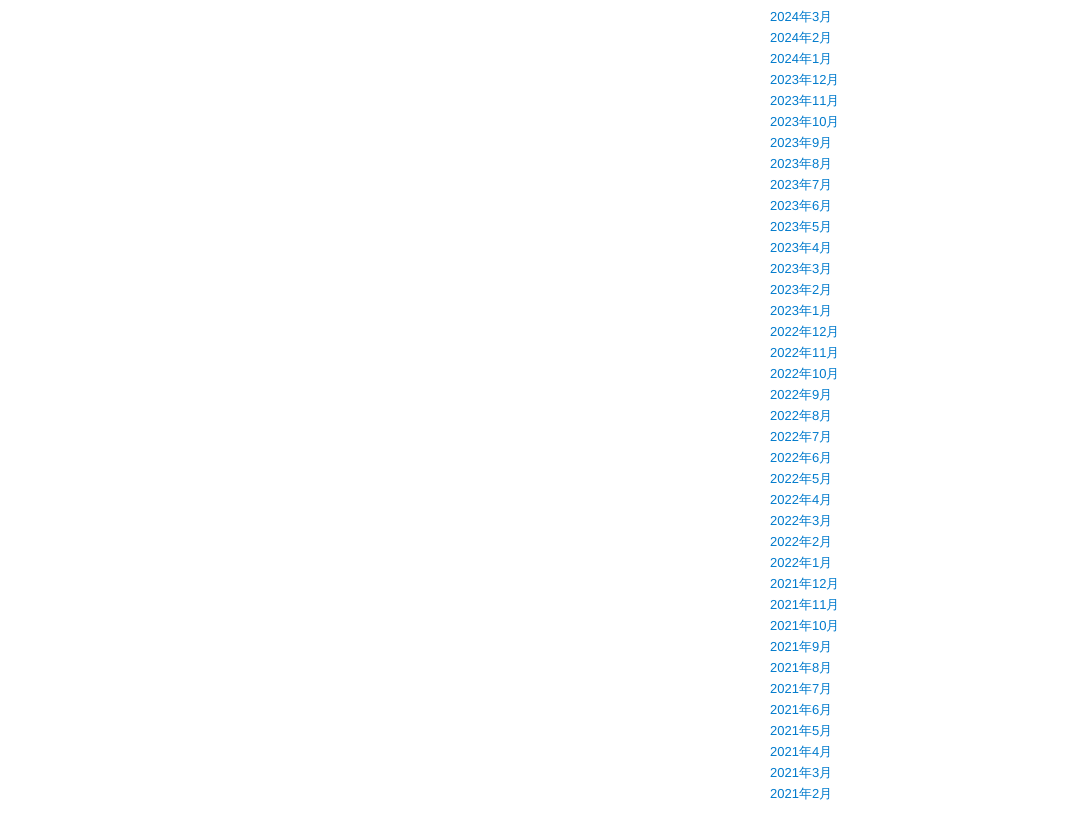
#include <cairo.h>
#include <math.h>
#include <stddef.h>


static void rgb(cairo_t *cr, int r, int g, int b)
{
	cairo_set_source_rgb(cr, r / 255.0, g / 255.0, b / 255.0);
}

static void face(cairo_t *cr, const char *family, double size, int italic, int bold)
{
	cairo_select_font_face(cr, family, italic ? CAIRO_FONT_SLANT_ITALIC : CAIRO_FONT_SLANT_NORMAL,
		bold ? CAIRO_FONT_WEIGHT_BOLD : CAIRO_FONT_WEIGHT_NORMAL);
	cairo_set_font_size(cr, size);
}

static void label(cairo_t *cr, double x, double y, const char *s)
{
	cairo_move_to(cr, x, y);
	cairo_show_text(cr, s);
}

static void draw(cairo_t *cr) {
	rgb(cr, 255, 255, 255);
	cairo_paint(cr);
	face(cr, "Liberation Sans", 13, 0, 0);
	rgb(cr, 0, 122, 204);
	label(cr, 770, 21, "2024");
	face(cr, "WenQuanYi Zen Hei Medium", 13, 0, 0);
	label(cr, 799, 21, "年");
	face(cr, "Liberation Sans", 13, 0, 0);
	label(cr, 812, 21, "3");
	face(cr, "WenQuanYi Zen Hei Medium", 13, 0, 0);
	label(cr, 819, 21, "月");
	face(cr, "Liberation Sans", 13, 0, 0);
	label(cr, 770, 42, "2024");
	face(cr, "WenQuanYi Zen Hei Medium", 13, 0, 0);
	label(cr, 799, 42, "年");
	face(cr, "Liberation Sans", 13, 0, 0);
	label(cr, 812, 42, "2");
	face(cr, "WenQuanYi Zen Hei Medium", 13, 0, 0);
	label(cr, 819, 42, "月");
	face(cr, "Liberation Sans", 13, 0, 0);
	label(cr, 770, 63, "2024");
	face(cr, "WenQuanYi Zen Hei Medium", 13, 0, 0);
	label(cr, 799, 63, "年");
	face(cr, "Liberation Sans", 13, 0, 0);
	label(cr, 812, 63, "1");
	face(cr, "WenQuanYi Zen Hei Medium", 13, 0, 0);
	label(cr, 819, 63, "月");
	face(cr, "Liberation Sans", 13, 0, 0);
	label(cr, 770, 84, "2023");
	face(cr, "WenQuanYi Zen Hei Medium", 13, 0, 0);
	label(cr, 799, 84, "年");
	face(cr, "Liberation Sans", 13, 0, 0);
	label(cr, 812, 84, "12");
	face(cr, "WenQuanYi Zen Hei Medium", 13, 0, 0);
	label(cr, 826, 84, "月");
	face(cr, "Liberation Sans", 13, 0, 0);
	label(cr, 770, 105, "2023");
	face(cr, "WenQuanYi Zen Hei Medium", 13, 0, 0);
	label(cr, 799, 105, "年");
	face(cr, "Liberation Sans", 13, 0, 0);
	label(cr, 812, 105, "11");
	face(cr, "WenQuanYi Zen Hei Medium", 13, 0, 0);
	label(cr, 826, 105, "月");
	face(cr, "Liberation Sans", 13, 0, 0);
	label(cr, 770, 126, "2023");
	face(cr, "WenQuanYi Zen Hei Medium", 13, 0, 0);
	label(cr, 799, 126, "年");
	face(cr, "Liberation Sans", 13, 0, 0);
	label(cr, 812, 126, "10");
	face(cr, "WenQuanYi Zen Hei Medium", 13, 0, 0);
	label(cr, 826, 126, "月");
	face(cr, "Liberation Sans", 13, 0, 0);
	label(cr, 770, 147, "2023");
	face(cr, "WenQuanYi Zen Hei Medium", 13, 0, 0);
	label(cr, 799, 147, "年");
	face(cr, "Liberation Sans", 13, 0, 0);
	label(cr, 812, 147, "9");
	face(cr, "WenQuanYi Zen Hei Medium", 13, 0, 0);
	label(cr, 819, 147, "月");
	face(cr, "Liberation Sans", 13, 0, 0);
	label(cr, 770, 168, "2023");
	face(cr, "WenQuanYi Zen Hei Medium", 13, 0, 0);
	label(cr, 799, 168, "年");
	face(cr, "Liberation Sans", 13, 0, 0);
	label(cr, 812, 168, "8");
	face(cr, "WenQuanYi Zen Hei Medium", 13, 0, 0);
	label(cr, 819, 168, "月");
	face(cr, "Liberation Sans", 13, 0, 0);
	label(cr, 770, 189, "2023");
	face(cr, "WenQuanYi Zen Hei Medium", 13, 0, 0);
	label(cr, 799, 189, "年");
	face(cr, "Liberation Sans", 13, 0, 0);
	label(cr, 812, 189, "7");
	face(cr, "WenQuanYi Zen Hei Medium", 13, 0, 0);
	label(cr, 819, 189, "月");
	face(cr, "Liberation Sans", 13, 0, 0);
	label(cr, 770, 210, "2023");
	face(cr, "WenQuanYi Zen Hei Medium", 13, 0, 0);
	label(cr, 799, 210, "年");
	face(cr, "Liberation Sans", 13, 0, 0);
	label(cr, 812, 210, "6");
	face(cr, "WenQuanYi Zen Hei Medium", 13, 0, 0);
	label(cr, 819, 210, "月");
	face(cr, "Liberation Sans", 13, 0, 0);
	label(cr, 770, 231, "2023");
	face(cr, "WenQuanYi Zen Hei Medium", 13, 0, 0);
	label(cr, 799, 231, "年");
	face(cr, "Liberation Sans", 13, 0, 0);
	label(cr, 812, 231, "5");
	face(cr, "WenQuanYi Zen Hei Medium", 13, 0, 0);
	label(cr, 819, 231, "月");
	face(cr, "Liberation Sans", 13, 0, 0);
	label(cr, 770, 252, "2023");
	face(cr, "WenQuanYi Zen Hei Medium", 13, 0, 0);
	label(cr, 799, 252, "年");
	face(cr, "Liberation Sans", 13, 0, 0);
	label(cr, 812, 252, "4");
	face(cr, "WenQuanYi Zen Hei Medium", 13, 0, 0);
	label(cr, 819, 252, "月");
	face(cr, "Liberation Sans", 13, 0, 0);
	label(cr, 770, 273, "2023");
	face(cr, "WenQuanYi Zen Hei Medium", 13, 0, 0);
	label(cr, 799, 273, "年");
	face(cr, "Liberation Sans", 13, 0, 0);
	label(cr, 812, 273, "3");
	face(cr, "WenQuanYi Zen Hei Medium", 13, 0, 0);
	label(cr, 819, 273, "月");
	face(cr, "Liberation Sans", 13, 0, 0);
	label(cr, 770, 294, "2023");
	face(cr, "WenQuanYi Zen Hei Medium", 13, 0, 0);
	label(cr, 799, 294, "年");
	face(cr, "Liberation Sans", 13, 0, 0);
	label(cr, 812, 294, "2");
	face(cr, "WenQuanYi Zen Hei Medium", 13, 0, 0);
	label(cr, 819, 294, "月");
	face(cr, "Liberation Sans", 13, 0, 0);
	label(cr, 770, 315, "2023");
	face(cr, "WenQuanYi Zen Hei Medium", 13, 0, 0);
	label(cr, 799, 315, "年");
	face(cr, "Liberation Sans", 13, 0, 0);
	label(cr, 812, 315, "1");
	face(cr, "WenQuanYi Zen Hei Medium", 13, 0, 0);
	label(cr, 819, 315, "月");
	face(cr, "Liberation Sans", 13, 0, 0);
	label(cr, 770, 336, "2022");
	face(cr, "WenQuanYi Zen Hei Medium", 13, 0, 0);
	label(cr, 799, 336, "年");
	face(cr, "Liberation Sans", 13, 0, 0);
	label(cr, 812, 336, "12");
	face(cr, "WenQuanYi Zen Hei Medium", 13, 0, 0);
	label(cr, 826, 336, "月");
	face(cr, "Liberation Sans", 13, 0, 0);
	label(cr, 770, 357, "2022");
	face(cr, "WenQuanYi Zen Hei Medium", 13, 0, 0);
	label(cr, 799, 357, "年");
	face(cr, "Liberation Sans", 13, 0, 0);
	label(cr, 812, 357, "11");
	face(cr, "WenQuanYi Zen Hei Medium", 13, 0, 0);
	label(cr, 826, 357, "月");
	face(cr, "Liberation Sans", 13, 0, 0);
	label(cr, 770, 378, "2022");
	face(cr, "WenQuanYi Zen Hei Medium", 13, 0, 0);
	label(cr, 799, 378, "年");
	face(cr, "Liberation Sans", 13, 0, 0);
	label(cr, 812, 378, "10");
	face(cr, "WenQuanYi Zen Hei Medium", 13, 0, 0);
	label(cr, 826, 378, "月");
	face(cr, "Liberation Sans", 13, 0, 0);
	label(cr, 770, 399, "2022");
	face(cr, "WenQuanYi Zen Hei Medium", 13, 0, 0);
	label(cr, 799, 399, "年");
	face(cr, "Liberation Sans", 13, 0, 0);
	label(cr, 812, 399, "9");
	face(cr, "WenQuanYi Zen Hei Medium", 13, 0, 0);
	label(cr, 819, 399, "月");
	face(cr, "Liberation Sans", 13, 0, 0);
	label(cr, 770, 420, "2022");
	face(cr, "WenQuanYi Zen Hei Medium", 13, 0, 0);
	label(cr, 799, 420, "年");
	face(cr, "Liberation Sans", 13, 0, 0);
	label(cr, 812, 420, "8");
	face(cr, "WenQuanYi Zen Hei Medium", 13, 0, 0);
	label(cr, 819, 420, "月");
	face(cr, "Liberation Sans", 13, 0, 0);
	label(cr, 770, 441, "2022");
	face(cr, "WenQuanYi Zen Hei Medium", 13, 0, 0);
	label(cr, 799, 441, "年");
	face(cr, "Liberation Sans", 13, 0, 0);
	label(cr, 812, 441, "7");
	face(cr, "WenQuanYi Zen Hei Medium", 13, 0, 0);
	label(cr, 819, 441, "月");
	face(cr, "Liberation Sans", 13, 0, 0);
	label(cr, 770, 462, "2022");
	face(cr, "WenQuanYi Zen Hei Medium", 13, 0, 0);
	label(cr, 799, 462, "年");
	face(cr, "Liberation Sans", 13, 0, 0);
	label(cr, 812, 462, "6");
	face(cr, "WenQuanYi Zen Hei Medium", 13, 0, 0);
	label(cr, 819, 462, "月");
	face(cr, "Liberation Sans", 13, 0, 0);
	label(cr, 770, 483, "2022");
	face(cr, "WenQuanYi Zen Hei Medium", 13, 0, 0);
	label(cr, 799, 483, "年");
	face(cr, "Liberation Sans", 13, 0, 0);
	label(cr, 812, 483, "5");
	face(cr, "WenQuanYi Zen Hei Medium", 13, 0, 0);
	label(cr, 819, 483, "月");
	face(cr, "Liberation Sans", 13, 0, 0);
	label(cr, 770, 504, "2022");
	face(cr, "WenQuanYi Zen Hei Medium", 13, 0, 0);
	label(cr, 799, 504, "年");
	face(cr, "Liberation Sans", 13, 0, 0);
	label(cr, 812, 504, "4");
	face(cr, "WenQuanYi Zen Hei Medium", 13, 0, 0);
	label(cr, 819, 504, "月");
	face(cr, "Liberation Sans", 13, 0, 0);
	label(cr, 770, 525, "2022");
	face(cr, "WenQuanYi Zen Hei Medium", 13, 0, 0);
	label(cr, 799, 525, "年");
	face(cr, "Liberation Sans", 13, 0, 0);
	label(cr, 812, 525, "3");
	face(cr, "WenQuanYi Zen Hei Medium", 13, 0, 0);
	label(cr, 819, 525, "月");
	face(cr, "Liberation Sans", 13, 0, 0);
	label(cr, 770, 546, "2022");
	face(cr, "WenQuanYi Zen Hei Medium", 13, 0, 0);
	label(cr, 799, 546, "年");
	face(cr, "Liberation Sans", 13, 0, 0);
	label(cr, 812, 546, "2");
	face(cr, "WenQuanYi Zen Hei Medium", 13, 0, 0);
	label(cr, 819, 546, "月");
	face(cr, "Liberation Sans", 13, 0, 0);
	label(cr, 770, 567, "2022");
	face(cr, "WenQuanYi Zen Hei Medium", 13, 0, 0);
	label(cr, 799, 567, "年");
	face(cr, "Liberation Sans", 13, 0, 0);
	label(cr, 812, 567, "1");
	face(cr, "WenQuanYi Zen Hei Medium", 13, 0, 0);
	label(cr, 819, 567, "月");
	face(cr, "Liberation Sans", 13, 0, 0);
	label(cr, 770, 588, "2021");
	face(cr, "WenQuanYi Zen Hei Medium", 13, 0, 0);
	label(cr, 799, 588, "年");
	face(cr, "Liberation Sans", 13, 0, 0);
	label(cr, 812, 588, "12");
	face(cr, "WenQuanYi Zen Hei Medium", 13, 0, 0);
	label(cr, 826, 588, "月");
	face(cr, "Liberation Sans", 13, 0, 0);
	label(cr, 770, 609, "2021");
	face(cr, "WenQuanYi Zen Hei Medium", 13, 0, 0);
	label(cr, 799, 609, "年");
	face(cr, "Liberation Sans", 13, 0, 0);
	label(cr, 812, 609, "11");
	face(cr, "WenQuanYi Zen Hei Medium", 13, 0, 0);
	label(cr, 826, 609, "月");
	face(cr, "Liberation Sans", 13, 0, 0);
	label(cr, 770, 630, "2021");
	face(cr, "WenQuanYi Zen Hei Medium", 13, 0, 0);
	label(cr, 799, 630, "年");
	face(cr, "Liberation Sans", 13, 0, 0);
	label(cr, 812, 630, "10");
	face(cr, "WenQuanYi Zen Hei Medium", 13, 0, 0);
	label(cr, 826, 630, "月");
	face(cr, "Liberation Sans", 13, 0, 0);
	label(cr, 770, 651, "2021");
	face(cr, "WenQuanYi Zen Hei Medium", 13, 0, 0);
	label(cr, 799, 651, "年");
	face(cr, "Liberation Sans", 13, 0, 0);
	label(cr, 812, 651, "9");
	face(cr, "WenQuanYi Zen Hei Medium", 13, 0, 0);
	label(cr, 819, 651, "月");
	face(cr, "Liberation Sans", 13, 0, 0);
	label(cr, 770, 672, "2021");
	face(cr, "WenQuanYi Zen Hei Medium", 13, 0, 0);
	label(cr, 799, 672, "年");
	face(cr, "Liberation Sans", 13, 0, 0);
	label(cr, 812, 672, "8");
	face(cr, "WenQuanYi Zen Hei Medium", 13, 0, 0);
	label(cr, 819, 672, "月");
	face(cr, "Liberation Sans", 13, 0, 0);
	label(cr, 770, 693, "2021");
	face(cr, "WenQuanYi Zen Hei Medium", 13, 0, 0);
	label(cr, 799, 693, "年");
	face(cr, "Liberation Sans", 13, 0, 0);
	label(cr, 812, 693, "7");
	face(cr, "WenQuanYi Zen Hei Medium", 13, 0, 0);
	label(cr, 819, 693, "月");
	face(cr, "Liberation Sans", 13, 0, 0);
	label(cr, 770, 714, "2021");
	face(cr, "WenQuanYi Zen Hei Medium", 13, 0, 0);
	label(cr, 799, 714, "年");
	face(cr, "Liberation Sans", 13, 0, 0);
	label(cr, 812, 714, "6");
	face(cr, "WenQuanYi Zen Hei Medium", 13, 0, 0);
	label(cr, 819, 714, "月");
	face(cr, "Liberation Sans", 13, 0, 0);
	label(cr, 770, 735, "2021");
	face(cr, "WenQuanYi Zen Hei Medium", 13, 0, 0);
	label(cr, 799, 735, "年");
	face(cr, "Liberation Sans", 13, 0, 0);
	label(cr, 812, 735, "5");
	face(cr, "WenQuanYi Zen Hei Medium", 13, 0, 0);
	label(cr, 819, 735, "月");
	face(cr, "Liberation Sans", 13, 0, 0);
	label(cr, 770, 756, "2021");
	face(cr, "WenQuanYi Zen Hei Medium", 13, 0, 0);
	label(cr, 799, 756, "年");
	face(cr, "Liberation Sans", 13, 0, 0);
	label(cr, 812, 756, "4");
	face(cr, "WenQuanYi Zen Hei Medium", 13, 0, 0);
	label(cr, 819, 756, "月");
	face(cr, "Liberation Sans", 13, 0, 0);
	label(cr, 770, 777, "2021");
	face(cr, "WenQuanYi Zen Hei Medium", 13, 0, 0);
	label(cr, 799, 777, "年");
	face(cr, "Liberation Sans", 13, 0, 0);
	label(cr, 812, 777, "3");
	face(cr, "WenQuanYi Zen Hei Medium", 13, 0, 0);
	label(cr, 819, 777, "月");
	face(cr, "Liberation Sans", 13, 0, 0);
	label(cr, 770, 798, "2021");
	face(cr, "WenQuanYi Zen Hei Medium", 13, 0, 0);
	label(cr, 799, 798, "年");
	face(cr, "Liberation Sans", 13, 0, 0);
	label(cr, 812, 798, "2");
	face(cr, "WenQuanYi Zen Hei Medium", 13, 0, 0);
	label(cr, 819, 798, "月");
}

int main(void) {
	cairo_surface_t *surface = cairo_image_surface_create(CAIRO_FORMAT_RGB24, 1070, 814);
	cairo_t *cr = cairo_create(surface);
	cairo_font_options_t *options = cairo_font_options_create();
	cairo_font_options_set_hint_metrics(options, CAIRO_HINT_METRICS_OFF);
	cairo_font_options_set_hint_style(options, CAIRO_HINT_STYLE_NONE);
	cairo_set_font_options(cr, options);
	cairo_set_miter_limit(cr, 4);
	draw(cr);
	cairo_surface_write_to_png(surface, "render.png");
	cairo_font_options_destroy(options);
	cairo_destroy(cr);
	cairo_surface_destroy(surface);
	return 0;
}
